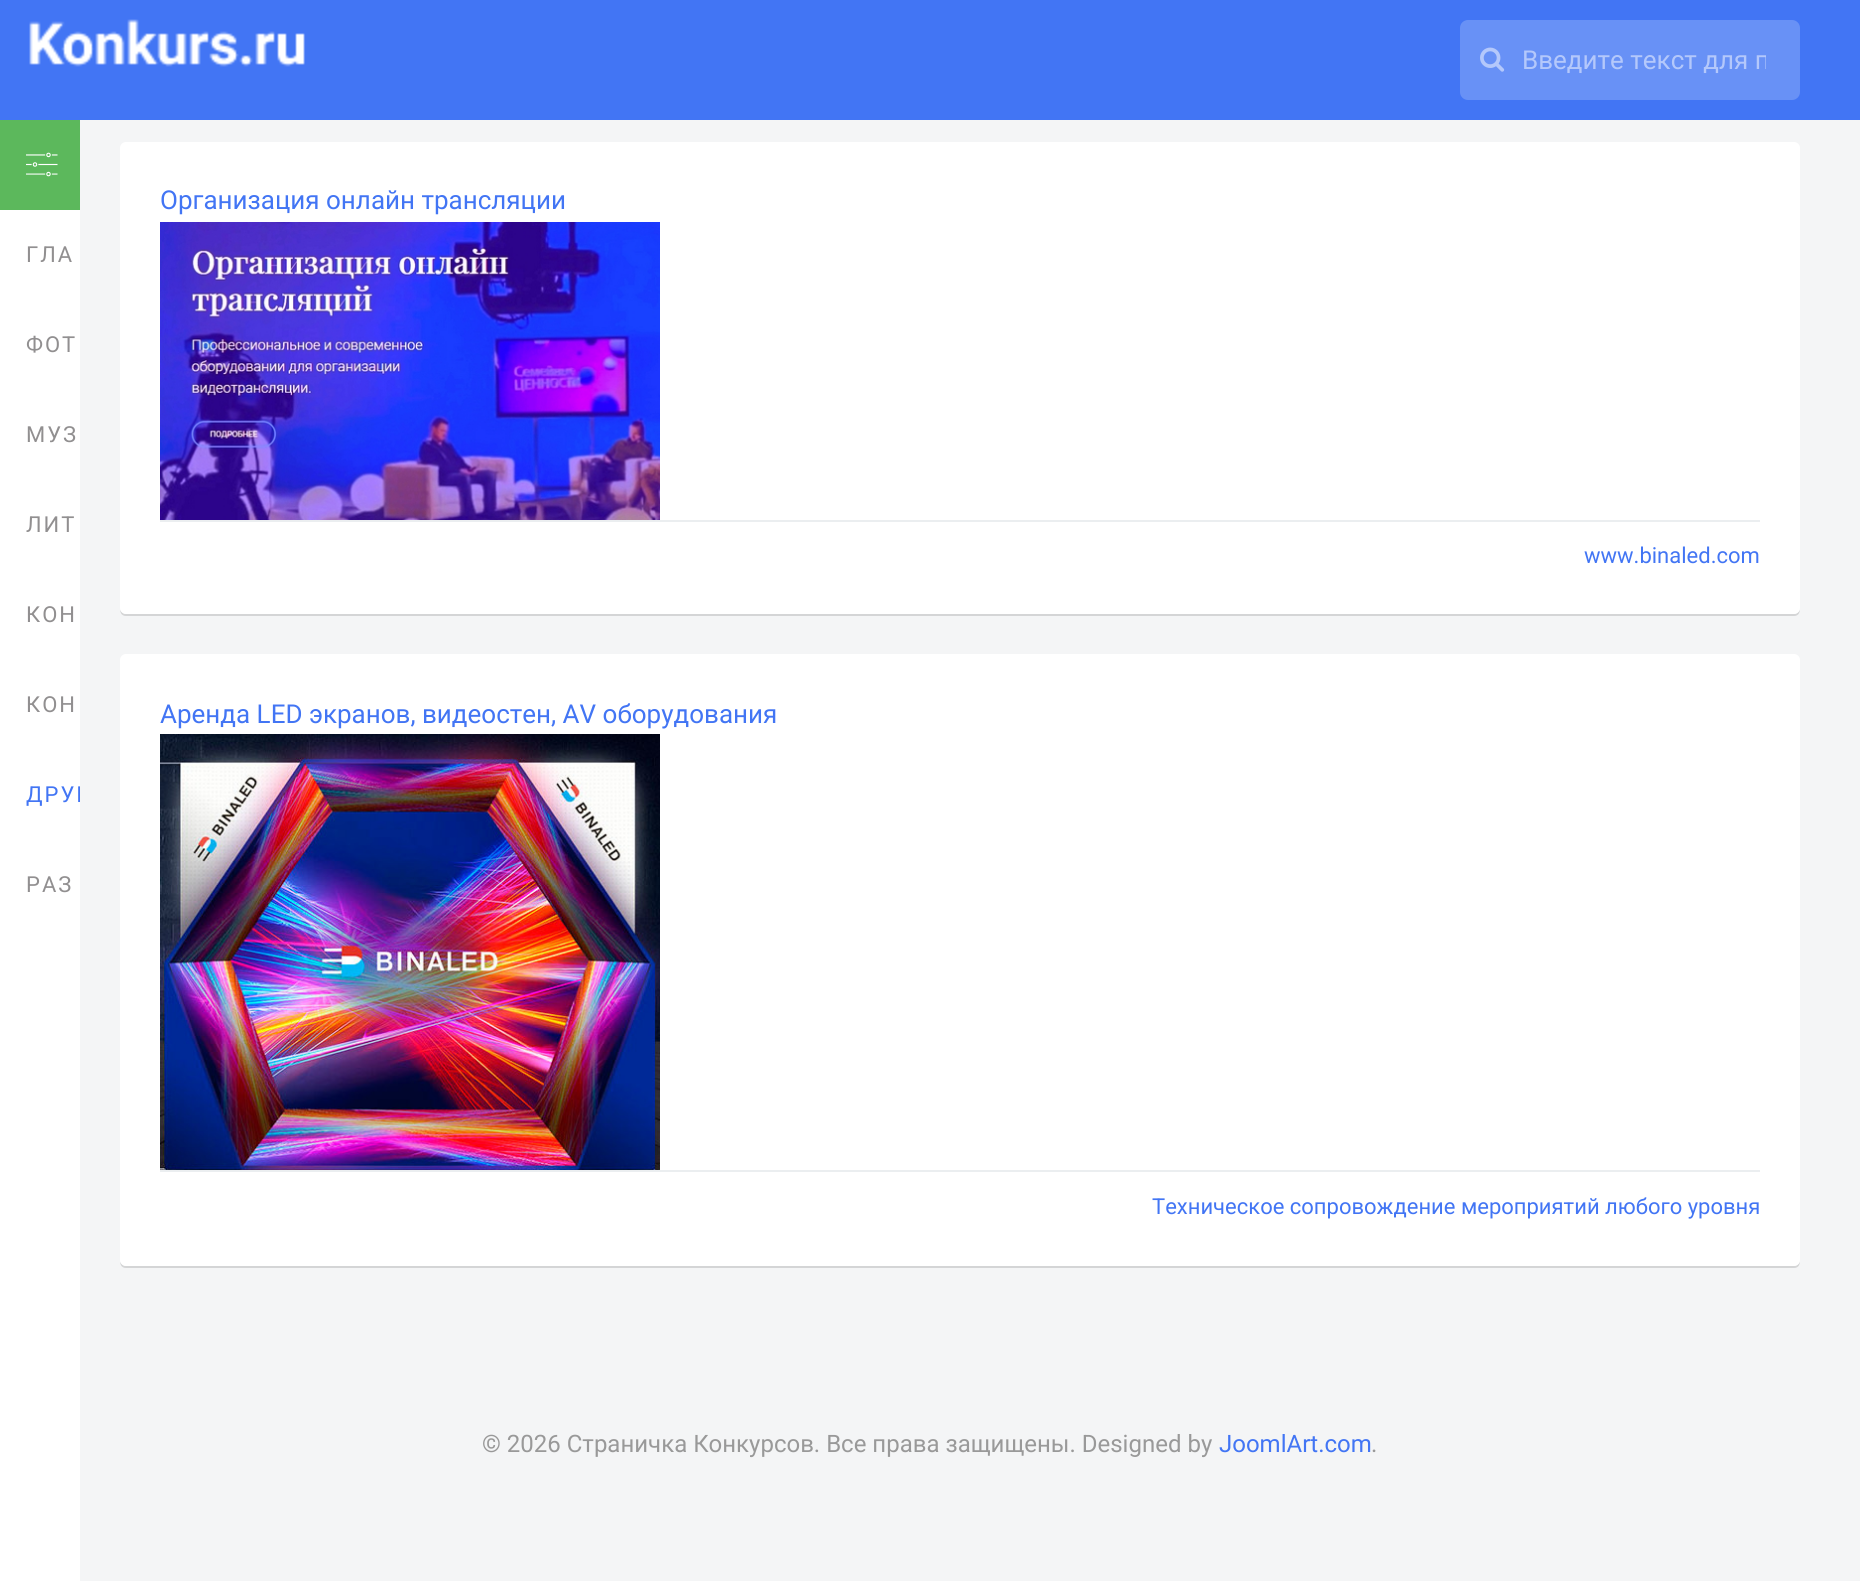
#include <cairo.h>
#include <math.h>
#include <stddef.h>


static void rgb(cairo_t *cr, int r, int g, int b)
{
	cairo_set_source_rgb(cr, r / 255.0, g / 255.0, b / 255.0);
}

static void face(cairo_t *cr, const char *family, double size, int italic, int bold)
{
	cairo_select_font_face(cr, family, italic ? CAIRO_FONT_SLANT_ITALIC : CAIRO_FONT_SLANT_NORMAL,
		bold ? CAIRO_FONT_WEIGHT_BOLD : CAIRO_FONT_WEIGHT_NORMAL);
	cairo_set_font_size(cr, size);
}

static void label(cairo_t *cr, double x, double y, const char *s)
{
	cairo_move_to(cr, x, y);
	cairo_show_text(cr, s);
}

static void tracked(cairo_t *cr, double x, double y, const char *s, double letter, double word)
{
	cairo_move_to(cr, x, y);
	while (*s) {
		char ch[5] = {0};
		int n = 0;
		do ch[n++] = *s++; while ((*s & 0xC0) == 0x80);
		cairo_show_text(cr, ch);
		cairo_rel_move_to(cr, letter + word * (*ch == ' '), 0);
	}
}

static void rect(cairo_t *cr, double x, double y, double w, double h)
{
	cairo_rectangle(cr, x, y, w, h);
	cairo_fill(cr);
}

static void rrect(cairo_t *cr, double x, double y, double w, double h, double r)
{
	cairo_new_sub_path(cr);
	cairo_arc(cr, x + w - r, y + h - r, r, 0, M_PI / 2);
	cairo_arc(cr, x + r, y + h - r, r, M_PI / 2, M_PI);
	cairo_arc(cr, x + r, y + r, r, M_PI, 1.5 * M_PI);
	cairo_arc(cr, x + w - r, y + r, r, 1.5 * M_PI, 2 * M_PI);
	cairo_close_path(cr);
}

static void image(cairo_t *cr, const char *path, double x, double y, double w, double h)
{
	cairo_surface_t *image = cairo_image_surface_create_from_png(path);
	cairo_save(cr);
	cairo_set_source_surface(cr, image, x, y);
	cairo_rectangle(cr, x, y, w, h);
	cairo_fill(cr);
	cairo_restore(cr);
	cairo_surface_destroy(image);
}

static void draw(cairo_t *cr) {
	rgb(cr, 244, 245, 246);
	cairo_paint(cr);
	rgb(cr, 66, 117, 244);
	rect(cr, 0, 0, 1860, 120);
	image(cr, "image0.png", 29, 19, 276, 48);
	rgb(cr, 104, 145, 246);
	rrect(cr, 1460, 20, 340, 80, 8);
	cairo_fill(cr);
	image(cr, "image1.png", 1480, 47, 25, 25);
	cairo_save(cr);
	cairo_rectangle(cr, 1522, 46, 244, 30);
	cairo_clip(cr);
	face(cr, "Roboto", 26, 0, 0);
	rgb(cr, 180, 200, 251);
	label(cr, 1522, 69, "Введите текст для п");
	cairo_restore(cr);
	rgb(cr, 255, 255, 255);
	rect(cr, 0, 210, 80, 1371);
	rgb(cr, 92, 184, 92);
	rect(cr, 0, 120, 80, 90);
	image(cr, "image2.png", 26, 152, 32, 25);
	face(cr, "Roboto", 22, 0, 0);
	rgb(cr, 145, 143, 144);
	tracked(cr, 26, 262, "ГЛА", 2, 0);
	tracked(cr, 26, 352, "ФОТ", 2, 0);
	tracked(cr, 26, 442, "МУЗ", 2, 0);
	tracked(cr, 26, 532, "ЛИТ", 2, 0);
	tracked(cr, 26, 622, "КОН", 2, 0);
	tracked(cr, 26, 712, "КОН", 2, 0);
	cairo_save(cr);
	cairo_rectangle(cr, 0, 120, 80, 810);
	cairo_clip(cr);
	rgb(cr, 66, 117, 244);
	tracked(cr, 26, 802, "ДРУГ", 2, 0);
	cairo_restore(cr);
	tracked(cr, 26, 892, "РАЗ", 2, 0);
	rgb(cr, 212, 213, 214);
	cairo_new_path(cr);
	cairo_move_to(cr, 120, 608);
	cairo_curve_to(cr, 120, 612, 121, 616, 126, 616);
	cairo_line_to(cr, 1794, 616);
	cairo_curve_to(cr, 1799, 616, 1800, 612, 1800, 608);
	cairo_curve_to(cr, 1800, 611, 1797, 614, 1794, 614);
	cairo_line_to(cr, 126, 614);
	cairo_curve_to(cr, 123, 614, 120, 611, 120, 608);
	cairo_close_path(cr);
	cairo_fill(cr);
	rgb(cr, 255, 255, 255);
	rrect(cr, 120, 142, 1680, 472, 6);
	cairo_fill(cr);
	face(cr, "Roboto", 26, 0, 0);
	rgb(cr, 66, 117, 244);
	label(cr, 160, 209, "Организация онлайн трансляции");
	image(cr, "image3.png", 160, 222, 500, 298);
	rgb(cr, 235, 238, 240);
	rect(cr, 160, 520, 1600, 2);
	face(cr, "Roboto", 22, 0, 0);
	rgb(cr, 66, 117, 244);
	label(cr, 1584, 563, "www.binaled.com");
	rgb(cr, 212, 213, 214);
	cairo_new_path(cr);
	cairo_move_to(cr, 120, 1260);
	cairo_curve_to(cr, 120, 1264, 121, 1268, 126, 1268);
	cairo_line_to(cr, 1794, 1268);
	cairo_curve_to(cr, 1799, 1268, 1800, 1264, 1800, 1260);
	cairo_curve_to(cr, 1800, 1263, 1797, 1266, 1794, 1266);
	cairo_line_to(cr, 126, 1266);
	cairo_curve_to(cr, 123, 1266, 120, 1263, 120, 1260);
	cairo_close_path(cr);
	cairo_fill(cr);
	rgb(cr, 255, 255, 255);
	rrect(cr, 120, 654, 1680, 612, 6);
	cairo_fill(cr);
	face(cr, "Roboto", 26, 0, 0);
	rgb(cr, 66, 117, 244);
	label(cr, 160, 723, "Аренда LED экранов, видеостен, AV оборудования");
	image(cr, "image4.png", 160, 734, 500, 436);
	rgb(cr, 235, 238, 240);
	rect(cr, 160, 1170, 1600, 2);
	face(cr, "Roboto", 22, 0, 0);
	rgb(cr, 66, 117, 244);
	label(cr, 1152, 1214, "Техническое сопровождение мероприятий любого уровня");
	face(cr, "Roboto", 24, 0, 0);
	rgb(cr, 153, 153, 153);
	label(cr, 482, 1452, "© 2026 Страничка Конкурсов. Все права защищены. Designed by");
	rgb(cr, 66, 117, 244);
	label(cr, 1219, 1452, "JoomlArt.com");
	rgb(cr, 153, 153, 153);
	label(cr, 1371, 1452, ".");
}

int main(void) {
	cairo_surface_t *surface = cairo_image_surface_create(CAIRO_FORMAT_RGB24, 1860, 1581);
	cairo_t *cr = cairo_create(surface);
	cairo_font_options_t *options = cairo_font_options_create();
	cairo_font_options_set_hint_metrics(options, CAIRO_HINT_METRICS_OFF);
	cairo_font_options_set_hint_style(options, CAIRO_HINT_STYLE_NONE);
	cairo_set_font_options(cr, options);
	cairo_set_miter_limit(cr, 4);
	draw(cr);
	cairo_surface_write_to_png(surface, "render.png");
	cairo_font_options_destroy(options);
	cairo_destroy(cr);
	cairo_surface_destroy(surface);
	return 0;
}
